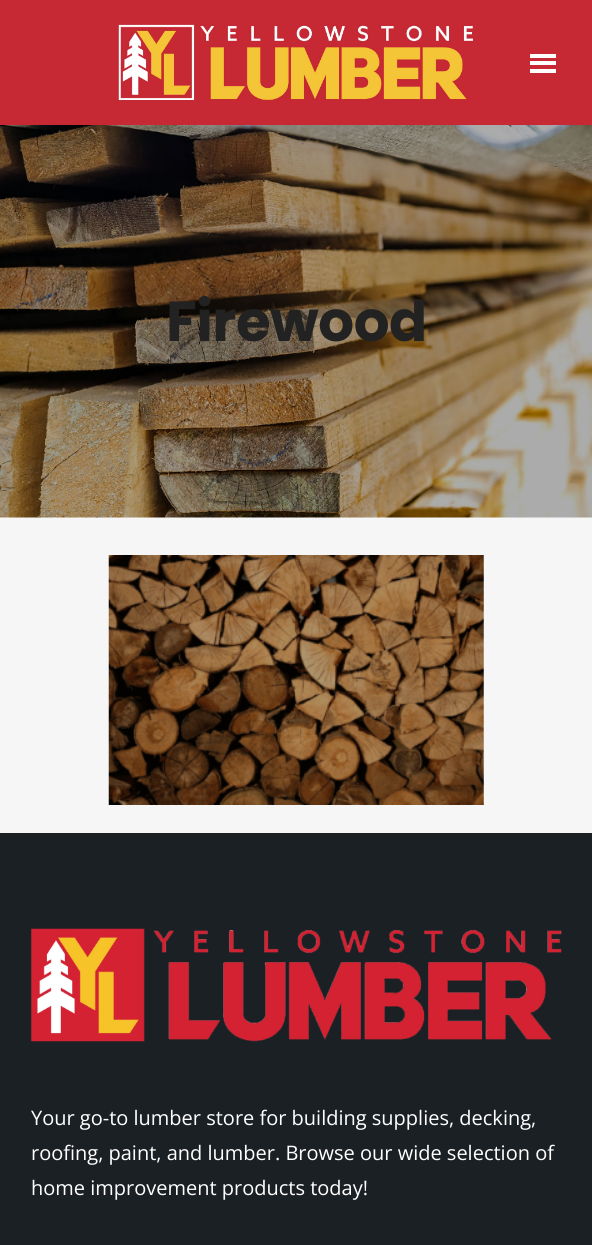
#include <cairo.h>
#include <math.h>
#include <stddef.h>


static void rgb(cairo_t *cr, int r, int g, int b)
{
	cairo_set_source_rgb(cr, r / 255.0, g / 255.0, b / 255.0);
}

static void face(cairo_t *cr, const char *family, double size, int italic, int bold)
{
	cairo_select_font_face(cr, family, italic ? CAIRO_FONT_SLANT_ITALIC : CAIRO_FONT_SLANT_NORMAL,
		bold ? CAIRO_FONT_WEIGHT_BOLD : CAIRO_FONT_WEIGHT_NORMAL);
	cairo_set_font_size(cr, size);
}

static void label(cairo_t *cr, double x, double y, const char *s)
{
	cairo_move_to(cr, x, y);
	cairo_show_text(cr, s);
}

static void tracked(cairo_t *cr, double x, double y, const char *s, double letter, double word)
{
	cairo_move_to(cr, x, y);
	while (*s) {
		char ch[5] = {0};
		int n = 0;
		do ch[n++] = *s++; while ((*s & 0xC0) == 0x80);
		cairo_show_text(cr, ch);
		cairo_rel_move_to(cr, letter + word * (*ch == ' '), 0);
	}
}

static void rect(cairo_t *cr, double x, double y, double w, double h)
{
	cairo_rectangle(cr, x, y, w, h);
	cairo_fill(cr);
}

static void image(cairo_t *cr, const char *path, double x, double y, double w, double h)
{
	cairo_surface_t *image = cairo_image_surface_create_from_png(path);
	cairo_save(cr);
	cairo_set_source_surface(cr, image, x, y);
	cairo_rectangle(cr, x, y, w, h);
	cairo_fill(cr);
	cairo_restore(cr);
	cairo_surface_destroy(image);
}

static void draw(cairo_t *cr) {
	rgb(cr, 246, 246, 246);
	cairo_paint(cr);
	rgb(cr, 198, 40, 52);
	rect(cr, 0, 0, 592, 125);
	image(cr, "image0.png", 118, 24, 356, 77);
	rgb(cr, 255, 255, 255);
	rect(cr, 530, 61, 26, 4);
	rect(cr, 530, 54, 26, 4);
	rect(cr, 530, 69, 26, 4);
	image(cr, "image1.png", 0, 125, 592, 393);
	face(cr, "Poppins", 56.25, 0, 1);
	rgb(cr, 34, 34, 34);
	tracked(cr, 166, 341, "Firewood", -0.5, 0);
	image(cr, "image2.png", 108, 555, 376, 250);
	rgb(cr, 27, 32, 36);
	rect(cr, 0, 833, 592, 412);
	image(cr, "image3.png", 31, 928, 531, 114);
	face(cr, "Open Sans", 20, 0, 0);
	rgb(cr, 255, 255, 255);
	label(cr, 31, 1125, "Your go-to lumber store for building supplies, decking,");
	label(cr, 31, 1160, "roofing, paint, and lumber. Browse our wide selection of");
	label(cr, 31, 1195, "home improvement products today!");
}

int main(void) {
	cairo_surface_t *surface = cairo_image_surface_create(CAIRO_FORMAT_RGB24, 592, 1245);
	cairo_t *cr = cairo_create(surface);
	cairo_font_options_t *options = cairo_font_options_create();
	cairo_font_options_set_hint_metrics(options, CAIRO_HINT_METRICS_OFF);
	cairo_font_options_set_hint_style(options, CAIRO_HINT_STYLE_NONE);
	cairo_set_font_options(cr, options);
	cairo_set_miter_limit(cr, 4);
	draw(cr);
	cairo_surface_write_to_png(surface, "render.png");
	cairo_font_options_destroy(options);
	cairo_destroy(cr);
	cairo_surface_destroy(surface);
	return 0;
}
